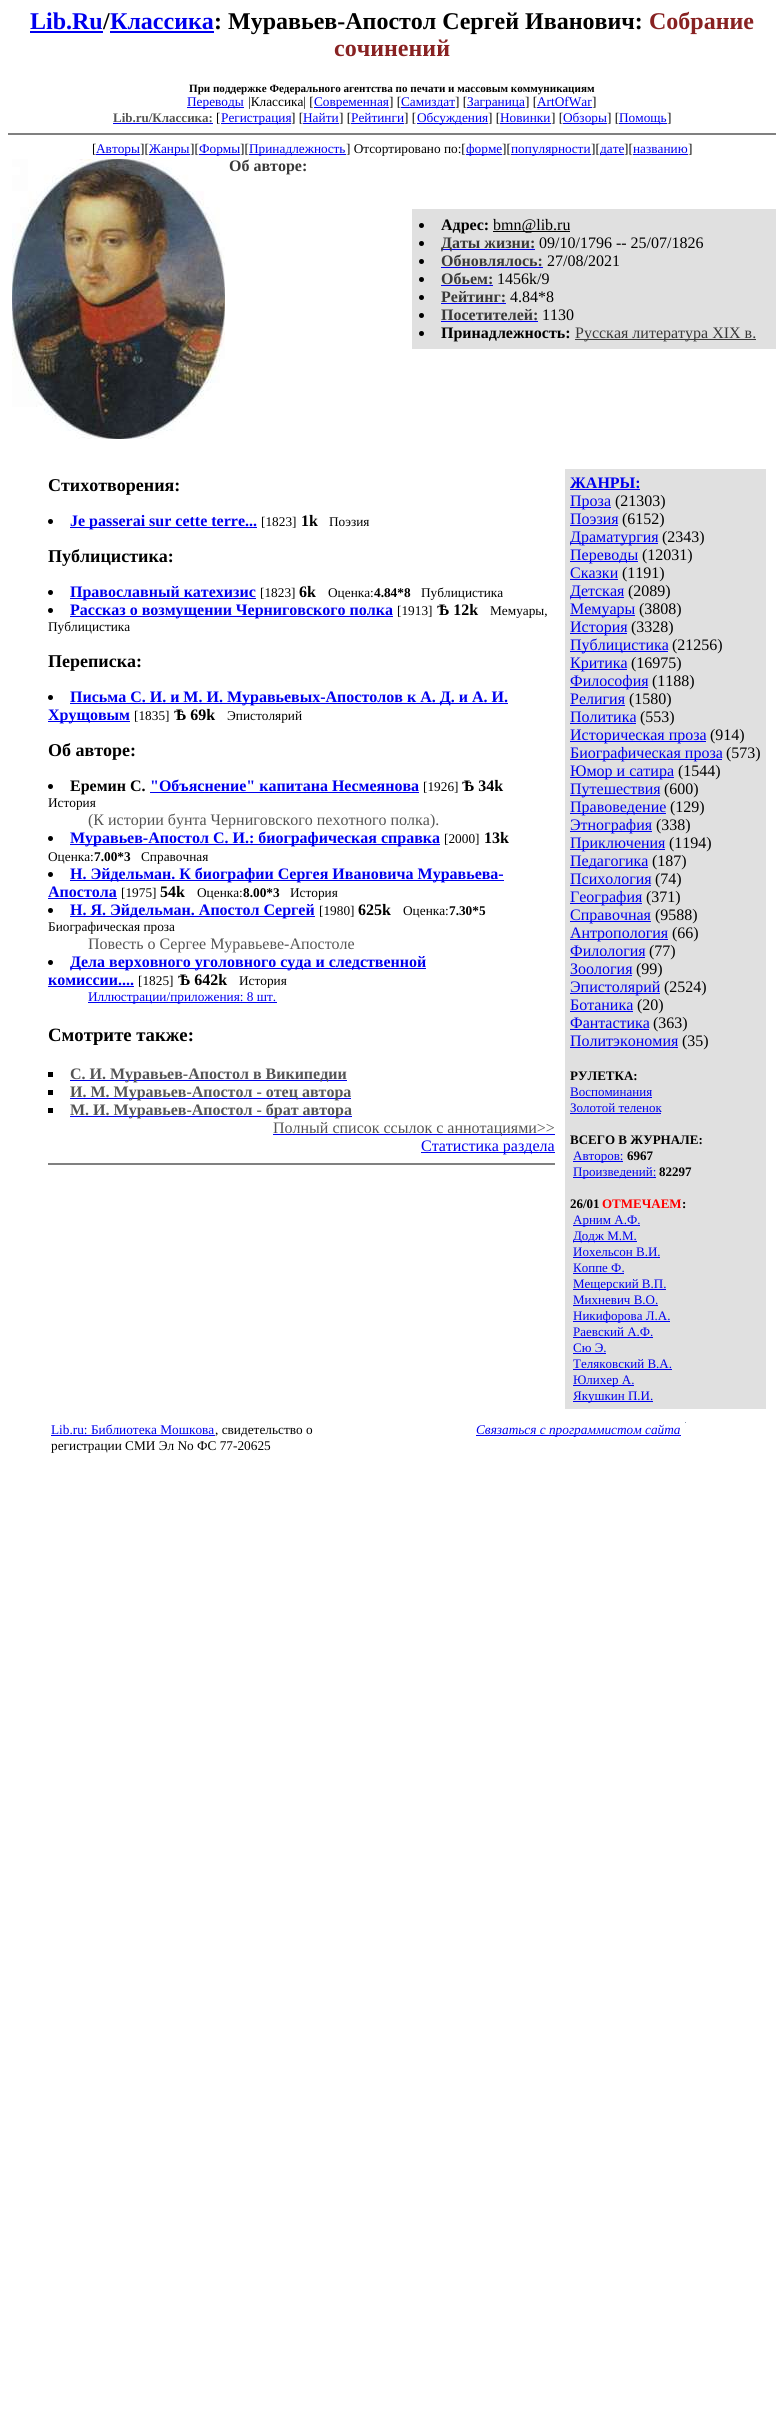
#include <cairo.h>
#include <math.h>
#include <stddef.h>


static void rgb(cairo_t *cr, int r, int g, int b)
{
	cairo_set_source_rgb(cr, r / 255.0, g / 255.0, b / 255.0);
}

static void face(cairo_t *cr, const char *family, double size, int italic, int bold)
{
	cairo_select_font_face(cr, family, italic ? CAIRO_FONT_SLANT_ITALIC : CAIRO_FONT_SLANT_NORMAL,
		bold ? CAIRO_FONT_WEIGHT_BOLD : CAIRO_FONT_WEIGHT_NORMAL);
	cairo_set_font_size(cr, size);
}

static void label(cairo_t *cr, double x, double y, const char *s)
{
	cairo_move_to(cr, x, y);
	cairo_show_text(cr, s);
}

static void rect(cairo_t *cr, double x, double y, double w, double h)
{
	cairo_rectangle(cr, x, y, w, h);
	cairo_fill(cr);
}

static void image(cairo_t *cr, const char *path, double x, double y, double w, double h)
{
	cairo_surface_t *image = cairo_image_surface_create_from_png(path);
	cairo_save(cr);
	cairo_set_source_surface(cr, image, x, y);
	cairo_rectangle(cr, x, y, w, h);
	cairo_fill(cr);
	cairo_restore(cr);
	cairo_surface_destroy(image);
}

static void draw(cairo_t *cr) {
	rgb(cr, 255, 255, 255);
	cairo_paint(cr);
	face(cr, "Liberation Serif", 24, 0, 1);
	rgb(cr, 0, 0, 238);
	label(cr, 30, 29, "Lib.Ru");
	rect(cr, 30, 31, 73, 2);
	rgb(cr, 0, 0, 0);
	label(cr, 103, 29, "/");
	rgb(cr, 0, 0, 238);
	label(cr, 110, 29, "Классика");
	rect(cr, 110, 31, 104, 2);
	rgb(cr, 0, 0, 0);
	label(cr, 214, 29, ": Муравьев-Апостол Сергей Иванович:");
	rgb(cr, 136, 34, 34);
	label(cr, 649, 29, "Собрание");
	label(cr, 334, 56, "сочинений");
	face(cr, "Liberation Serif", 11.1, 0, 1);
	rgb(cr, 0, 0, 0);
	label(cr, 189, 92, "При поддержке Федерального агентства по печати и массовым коммуникациям");
	rgb(cr, 0, 0, 238);
	rect(cr, 187, 107, 57, 1);
	face(cr, "Liberation Serif", 13.3, 0, 0);
	label(cr, 187, 106, "Переводы");
	rgb(cr, 0, 0, 0);
	label(cr, 248, 106, "|Классика| [");
	rgb(cr, 0, 0, 238);
	rect(cr, 314, 107, 75, 1);
	label(cr, 314, 106, "Современная");
	rgb(cr, 0, 0, 0);
	label(cr, 389, 106, "] [");
	rgb(cr, 0, 0, 238);
	rect(cr, 401, 107, 54, 1);
	label(cr, 401, 106, "Самиздат");
	rgb(cr, 0, 0, 0);
	label(cr, 455, 106, "] [");
	rgb(cr, 0, 0, 238);
	rect(cr, 467, 107, 58, 1);
	label(cr, 467, 106, "Заграница");
	rgb(cr, 0, 0, 0);
	label(cr, 525, 106, "] [");
	rgb(cr, 0, 0, 238);
	rect(cr, 537, 107, 55, 1);
	label(cr, 537, 106, "ArtOfWar");
	rgb(cr, 0, 0, 0);
	label(cr, 592, 106, "]");
	face(cr, "Liberation Serif", 13, 0, 1);
	rgb(cr, 85, 85, 85);
	label(cr, 113, 122, "Lib.ru/Классика:");
	rgb(cr, 0, 0, 238);
	rect(cr, 113, 123, 100, 1);
	face(cr, "Liberation Serif", 13.3, 0, 0);
	rgb(cr, 0, 0, 0);
	label(cr, 216, 122, "[");
	rgb(cr, 0, 0, 238);
	rect(cr, 221, 123, 70, 1);
	label(cr, 221, 122, "Регистрация");
	rgb(cr, 0, 0, 0);
	label(cr, 291, 122, "] [");
	rgb(cr, 0, 0, 238);
	label(cr, 303, 122, "Найти");
	rect(cr, 303, 123, 36, 1);
	rgb(cr, 0, 0, 0);
	label(cr, 339, 122, "] [");
	rgb(cr, 0, 0, 238);
	label(cr, 351, 122, "Рейтинги");
	rect(cr, 351, 123, 53, 1);
	rgb(cr, 0, 0, 0);
	label(cr, 404, 122, "] [");
	rgb(cr, 0, 0, 238);
	rect(cr, 417, 123, 71, 1);
	label(cr, 417, 122, "Обсуждения");
	rgb(cr, 0, 0, 0);
	label(cr, 488, 122, "] [");
	rgb(cr, 0, 0, 238);
	label(cr, 500, 122, "Новинки");
	rect(cr, 500, 123, 51, 1);
	rgb(cr, 0, 0, 0);
	label(cr, 551, 122, "] [");
	rgb(cr, 0, 0, 238);
	rect(cr, 563, 123, 44, 1);
	label(cr, 563, 122, "Обзоры");
	rgb(cr, 0, 0, 0);
	label(cr, 607, 122, "] [");
	rgb(cr, 0, 0, 238);
	rect(cr, 619, 123, 48, 1);
	label(cr, 619, 122, "Помощь");
	rgb(cr, 0, 0, 0);
	label(cr, 667, 122, "]");
	rgb(cr, 128, 128, 128);
	rect(cr, 8, 133, 768, 2);
	rgb(cr, 0, 0, 0);
	label(cr, 92, 153, "[");
	rgb(cr, 0, 0, 238);
	rect(cr, 96, 154, 44, 1);
	label(cr, 96, 153, "Авторы");
	rgb(cr, 0, 0, 0);
	label(cr, 140, 153, "][");
	rgb(cr, 0, 0, 238);
	rect(cr, 149, 154, 41, 1);
	label(cr, 149, 153, "Жанры");
	rgb(cr, 0, 0, 0);
	label(cr, 190, 153, "][");
	rgb(cr, 0, 0, 238);
	rect(cr, 199, 154, 41, 1);
	label(cr, 199, 153, "Формы");
	rgb(cr, 0, 0, 0);
	label(cr, 240, 153, "][");
	rgb(cr, 0, 0, 238);
	rect(cr, 249, 154, 97, 1);
	label(cr, 249, 153, "Принадлежность");
	rgb(cr, 0, 0, 0);
	label(cr, 346, 153, "] Отсортировано по:[");
	rgb(cr, 0, 0, 238);
	rect(cr, 466, 154, 36, 1);
	label(cr, 466, 153, "форме");
	rgb(cr, 0, 0, 0);
	label(cr, 502, 153, "][");
	rgb(cr, 0, 0, 238);
	rect(cr, 511, 154, 80, 1);
	label(cr, 511, 153, "популярности");
	rgb(cr, 0, 0, 0);
	label(cr, 591, 153, "][");
	rgb(cr, 0, 0, 238);
	rect(cr, 600, 154, 24, 1);
	label(cr, 600, 153, "дате");
	rgb(cr, 0, 0, 0);
	label(cr, 624, 153, "][");
	rgb(cr, 0, 0, 238);
	label(cr, 633, 153, "названию");
	rect(cr, 633, 154, 55, 1);
	rgb(cr, 0, 0, 0);
	label(cr, 688, 153, "]");
	image(cr, "image0.png", 12, 159, 213, 280);
	face(cr, "Liberation Serif", 16, 0, 1);
	rgb(cr, 57, 57, 57);
	label(cr, 229, 171, "Об авторе:");
	rgb(cr, 224, 224, 224);
	rect(cr, 412, 209, 364, 140);
	rgb(cr, 0, 0, 0);
	cairo_new_path(cr);
	cairo_arc(cr, 421.5, 225.5, 2.5, 0, 2 * M_PI);
	cairo_fill(cr);
	label(cr, 441, 230, "Aдpeс:");
	rect(cr, 493, 231, 77, 1);
	face(cr, "Liberation Serif", 16, 0, 0);
	label(cr, 493, 230, "bmn@lib.ru");
	cairo_new_path(cr);
	cairo_arc(cr, 421.5, 243.5, 2.5, 0, 2 * M_PI);
	cairo_fill(cr);
	rgb(cr, 0, 0, 238);
	rect(cr, 441, 249, 94, 1);
	face(cr, "Liberation Serif", 16, 0, 1);
	rgb(cr, 57, 57, 57);
	label(cr, 441, 248, "Даты жизни:");
	face(cr, "Liberation Serif", 16, 0, 0);
	rgb(cr, 0, 0, 0);
	label(cr, 539, 248, "09/10/1796 -- 25/07/1826");
	cairo_new_path(cr);
	cairo_arc(cr, 421.5, 261.5, 2.5, 0, 2 * M_PI);
	cairo_fill(cr);
	face(cr, "Liberation Serif", 16, 0, 1);
	rgb(cr, 57, 57, 57);
	label(cr, 441, 266, "Обновлялось:");
	rgb(cr, 0, 0, 238);
	rect(cr, 441, 267, 102, 1);
	face(cr, "Liberation Serif", 16, 0, 0);
	rgb(cr, 0, 0, 0);
	label(cr, 547, 266, "27/08/2021");
	cairo_new_path(cr);
	cairo_arc(cr, 421.5, 279.5, 2.5, 0, 2 * M_PI);
	cairo_fill(cr);
	face(cr, "Liberation Serif", 16, 0, 1);
	rgb(cr, 57, 57, 57);
	label(cr, 441, 284, "Обьем:");
	rgb(cr, 0, 0, 238);
	rect(cr, 441, 285, 52, 1);
	face(cr, "Liberation Serif", 16, 0, 0);
	rgb(cr, 0, 0, 0);
	label(cr, 497, 284, "1456k/9");
	cairo_new_path(cr);
	cairo_arc(cr, 421.5, 297.5, 2.5, 0, 2 * M_PI);
	cairo_fill(cr);
	face(cr, "Liberation Serif", 16, 0, 1);
	rgb(cr, 57, 57, 57);
	label(cr, 441, 302, "Рейтинг:");
	rgb(cr, 0, 0, 238);
	rect(cr, 441, 303, 65, 1);
	face(cr, "Liberation Serif", 16, 0, 0);
	rgb(cr, 0, 0, 0);
	label(cr, 510, 302, "4.84*8");
	cairo_new_path(cr);
	cairo_arc(cr, 421.5, 315.5, 2.5, 0, 2 * M_PI);
	cairo_fill(cr);
	face(cr, "Liberation Serif", 16, 0, 1);
	rgb(cr, 57, 57, 57);
	label(cr, 441, 320, "Посетителей:");
	rgb(cr, 0, 0, 238);
	rect(cr, 441, 321, 97, 1);
	face(cr, "Liberation Serif", 16, 0, 0);
	rgb(cr, 0, 0, 0);
	label(cr, 542, 320, "1130");
	cairo_new_path(cr);
	cairo_arc(cr, 421.5, 333.5, 2.5, 0, 2 * M_PI);
	cairo_fill(cr);
	face(cr, "Liberation Serif", 16, 0, 1);
	label(cr, 441, 338, "Принадлежность:");
	rgb(cr, 57, 57, 57);
	rect(cr, 575, 339, 181, 1);
	face(cr, "Liberation Serif", 16, 0, 0);
	label(cr, 575, 338, "Русская литература XIX в.");
	rgb(cr, 224, 224, 224);
	rect(cr, 565, 469, 201, 940);
	face(cr, "Liberation Serif", 16, 0, 1);
	rgb(cr, 0, 0, 238);
	label(cr, 570, 488, "ЖАНРЫ:");
	rect(cr, 570, 489, 70, 1);
	rect(cr, 570, 507, 41, 1);
	face(cr, "Liberation Serif", 16, 0, 0);
	label(cr, 570, 506, "Проза");
	rgb(cr, 0, 0, 0);
	label(cr, 615, 506, "(21303)");
	rgb(cr, 0, 0, 238);
	label(cr, 570, 524, "Поэзия");
	rect(cr, 570, 525, 48, 1);
	rgb(cr, 0, 0, 0);
	label(cr, 622, 524, "(6152)");
	rgb(cr, 0, 0, 238);
	rect(cr, 570, 543, 88, 1);
	label(cr, 570, 542, "Драматургия");
	rgb(cr, 0, 0, 0);
	label(cr, 662, 542, "(2343)");
	rgb(cr, 0, 0, 238);
	rect(cr, 570, 561, 68, 1);
	label(cr, 570, 560, "Переводы");
	rgb(cr, 0, 0, 0);
	label(cr, 642, 560, "(12031)");
	rgb(cr, 0, 0, 238);
	label(cr, 570, 578, "Сказки");
	rect(cr, 570, 579, 48, 1);
	rgb(cr, 0, 0, 0);
	label(cr, 622, 578, "(1191)");
	rgb(cr, 0, 0, 238);
	rect(cr, 570, 597, 54, 1);
	label(cr, 570, 596, "Детская");
	rgb(cr, 0, 0, 0);
	label(cr, 628, 596, "(2089)");
	rgb(cr, 0, 0, 238);
	rect(cr, 570, 615, 65, 1);
	label(cr, 570, 614, "Мемуары");
	rgb(cr, 0, 0, 0);
	label(cr, 639, 614, "(3808)");
	rgb(cr, 0, 0, 238);
	rect(cr, 570, 633, 57, 1);
	label(cr, 570, 632, "История");
	rgb(cr, 0, 0, 0);
	label(cr, 631, 632, "(3328)");
	rgb(cr, 0, 0, 238);
	rect(cr, 570, 651, 98, 1);
	label(cr, 570, 650, "Публицистика");
	rgb(cr, 0, 0, 0);
	label(cr, 672, 650, "(21256)");
	rgb(cr, 0, 0, 238);
	rect(cr, 570, 669, 57, 1);
	label(cr, 570, 668, "Критика");
	rgb(cr, 0, 0, 0);
	label(cr, 631, 668, "(16975)");
	rgb(cr, 0, 0, 238);
	rect(cr, 570, 687, 78, 1);
	label(cr, 570, 686, "Философия");
	rgb(cr, 0, 0, 0);
	label(cr, 652, 686, "(1188)");
	rgb(cr, 0, 0, 238);
	label(cr, 570, 704, "Религия");
	rect(cr, 570, 705, 55, 1);
	rgb(cr, 0, 0, 0);
	label(cr, 629, 704, "(1580)");
	rgb(cr, 0, 0, 238);
	label(cr, 570, 722, "Политика");
	rect(cr, 570, 723, 66, 1);
	rgb(cr, 0, 0, 0);
	label(cr, 640, 722, "(553)");
	rgb(cr, 0, 0, 238);
	rect(cr, 570, 741, 136, 1);
	label(cr, 570, 740, "Историческая проза");
	rgb(cr, 0, 0, 0);
	label(cr, 710, 740, "(914)");
	rgb(cr, 0, 0, 238);
	rect(cr, 570, 759, 152, 1);
	label(cr, 570, 758, "Биографическая проза");
	rgb(cr, 0, 0, 0);
	label(cr, 726, 758, "(573)");
	rgb(cr, 0, 0, 238);
	rect(cr, 570, 777, 104, 1);
	label(cr, 570, 776, "Юмор и сатира");
	rgb(cr, 0, 0, 0);
	label(cr, 678, 776, "(1544)");
	rgb(cr, 0, 0, 238);
	rect(cr, 570, 795, 90, 1);
	label(cr, 570, 794, "Путешествия");
	rgb(cr, 0, 0, 0);
	label(cr, 664, 794, "(600)");
	rgb(cr, 0, 0, 238);
	rect(cr, 570, 813, 96, 1);
	label(cr, 570, 812, "Правоведение");
	rgb(cr, 0, 0, 0);
	label(cr, 670, 812, "(129)");
	rgb(cr, 0, 0, 238);
	rect(cr, 570, 831, 82, 1);
	label(cr, 570, 830, "Этнография");
	rgb(cr, 0, 0, 0);
	label(cr, 656, 830, "(338)");
	rgb(cr, 0, 0, 238);
	rect(cr, 570, 849, 95, 1);
	label(cr, 570, 848, "Приключения");
	rgb(cr, 0, 0, 0);
	label(cr, 669, 848, "(1194)");
	rgb(cr, 0, 0, 238);
	rect(cr, 570, 867, 78, 1);
	label(cr, 570, 866, "Педагогика");
	rgb(cr, 0, 0, 0);
	label(cr, 652, 866, "(187)");
	rgb(cr, 0, 0, 238);
	label(cr, 570, 884, "Психология");
	rect(cr, 570, 885, 81, 1);
	rgb(cr, 0, 0, 0);
	label(cr, 655, 884, "(74)");
	rgb(cr, 0, 0, 238);
	rect(cr, 570, 903, 72, 1);
	label(cr, 570, 902, "География");
	rgb(cr, 0, 0, 0);
	label(cr, 646, 902, "(371)");
	rgb(cr, 0, 0, 238);
	rect(cr, 570, 921, 81, 1);
	label(cr, 570, 920, "Справочная");
	rgb(cr, 0, 0, 0);
	label(cr, 655, 920, "(9588)");
	rgb(cr, 0, 0, 238);
	rect(cr, 570, 939, 98, 1);
	label(cr, 570, 938, "Антропология");
	rgb(cr, 0, 0, 0);
	label(cr, 672, 938, "(66)");
	rgb(cr, 0, 0, 238);
	label(cr, 570, 956, "Филология");
	rect(cr, 570, 957, 75, 1);
	rgb(cr, 0, 0, 0);
	label(cr, 649, 956, "(77)");
	rgb(cr, 0, 0, 238);
	label(cr, 570, 974, "Зоология");
	rect(cr, 570, 975, 62, 1);
	rgb(cr, 0, 0, 0);
	label(cr, 636, 974, "(99)");
	rgb(cr, 0, 0, 238);
	rect(cr, 570, 993, 90, 1);
	label(cr, 570, 992, "Эпистолярий");
	rgb(cr, 0, 0, 0);
	label(cr, 664, 992, "(2524)");
	rgb(cr, 0, 0, 238);
	label(cr, 570, 1010, "Ботаника");
	rect(cr, 570, 1011, 63, 1);
	rgb(cr, 0, 0, 0);
	label(cr, 637, 1010, "(20)");
	rgb(cr, 0, 0, 238);
	label(cr, 570, 1028, "Фантастика");
	rect(cr, 570, 1029, 79, 1);
	rgb(cr, 0, 0, 0);
	label(cr, 653, 1028, "(363)");
	rgb(cr, 0, 0, 238);
	label(cr, 570, 1046, "Политэкономия");
	rect(cr, 570, 1047, 108, 1);
	rgb(cr, 0, 0, 0);
	label(cr, 682, 1046, "(35)");
	face(cr, "Liberation Serif", 13, 0, 1);
	label(cr, 570, 1080, "РУЛЕТКА:");
	face(cr, "Liberation Serif", 13, 0, 0);
	rgb(cr, 0, 0, 238);
	label(cr, 570, 1096, "Воспоминания");
	rect(cr, 570, 1097, 82, 1);
	label(cr, 570, 1112, "Золотой теленок");
	rect(cr, 570, 1113, 91, 1);
	face(cr, "Liberation Serif", 13, 0, 1);
	rgb(cr, 0, 0, 0);
	label(cr, 570, 1144, "ВСЕГО В ЖУРНАЛЕ:");
	rgb(cr, 0, 0, 238);
	rect(cr, 573, 1161, 50, 1);
	face(cr, "Liberation Serif", 13, 0, 0);
	label(cr, 573, 1160, "Авторов:");
	face(cr, "Liberation Serif", 13, 0, 1);
	rgb(cr, 0, 0, 0);
	label(cr, 627, 1160, "6967");
	rgb(cr, 0, 0, 238);
	rect(cr, 573, 1177, 83, 1);
	face(cr, "Liberation Serif", 13, 0, 0);
	label(cr, 573, 1176, "Произведений:");
	face(cr, "Liberation Serif", 13, 0, 1);
	rgb(cr, 0, 0, 0);
	label(cr, 659, 1176, "82297");
	label(cr, 570, 1208, "26/01");
	rgb(cr, 255, 0, 0);
	label(cr, 602, 1208, "ОТМЕЧАЕМ");
	rgb(cr, 0, 0, 0);
	label(cr, 682, 1208, ":");
	rgb(cr, 0, 0, 238);
	rect(cr, 573, 1225, 67, 1);
	face(cr, "Liberation Serif", 13, 0, 0);
	label(cr, 573, 1224, "Арним А.Ф.");
	rect(cr, 573, 1241, 64, 1);
	label(cr, 573, 1240, "Додж М.М.");
	label(cr, 573, 1256, "Иохельсон В.И.");
	rect(cr, 573, 1257, 87, 1);
	label(cr, 573, 1272, "Коппе Ф.");
	rect(cr, 573, 1273, 51, 1);
	rect(cr, 573, 1289, 93, 1);
	label(cr, 573, 1288, "Мещерский В.П.");
	label(cr, 573, 1304, "Михневич В.О.");
	rect(cr, 573, 1305, 85, 1);
	rect(cr, 573, 1321, 97, 1);
	label(cr, 573, 1320, "Никифорова Л.А.");
	label(cr, 573, 1336, "Раевский А.Ф.");
	rect(cr, 573, 1337, 80, 1);
	label(cr, 573, 1352, "Сю Э.");
	rect(cr, 573, 1353, 33, 1);
	label(cr, 573, 1368, "Теляковский В.А.");
	rect(cr, 573, 1369, 99, 1);
	rect(cr, 573, 1385, 61, 1);
	label(cr, 573, 1384, "Юлихер А.");
	rect(cr, 573, 1401, 80, 1);
	label(cr, 573, 1400, "Якушкин П.И.");
	face(cr, "Liberation Serif", 18, 0, 1);
	rgb(cr, 0, 0, 0);
	label(cr, 48, 491, "Стихотворения:");
	cairo_new_path(cr);
	cairo_arc(cr, 50.5, 521.5, 2.5, 0, 2 * M_PI);
	cairo_fill(cr);
	rgb(cr, 0, 0, 238);
	rect(cr, 70, 527, 187, 1);
	face(cr, "Liberation Serif", 16, 0, 1);
	label(cr, 70, 526, "Je passerai sur cette terre...");
	face(cr, "Liberation Serif", 13.3, 0, 0);
	rgb(cr, 0, 0, 0);
	label(cr, 261, 526, "[1823]");
	face(cr, "Liberation Serif", 16, 0, 1);
	label(cr, 301, 526, "1k");
	face(cr, "Liberation Serif", 13.3, 0, 0);
	label(cr, 329, 526, "Поэзия");
	face(cr, "Liberation Serif", 18, 0, 1);
	label(cr, 48, 562, "Публицистика:");
	cairo_new_path(cr);
	cairo_arc(cr, 50.5, 592.5, 2.5, 0, 2 * M_PI);
	cairo_fill(cr);
	rgb(cr, 0, 0, 238);
	rect(cr, 70, 598, 186, 1);
	face(cr, "Liberation Serif", 16, 0, 1);
	label(cr, 70, 597, "Православный катехизис");
	face(cr, "Liberation Serif", 13.3, 0, 0);
	rgb(cr, 0, 0, 0);
	label(cr, 260, 597, "[1823]");
	face(cr, "Liberation Serif", 16, 0, 1);
	label(cr, 299, 597, "6k");
	face(cr, "Liberation Serif", 13.3, 0, 0);
	label(cr, 328, 597, "Оценка:");
	face(cr, "Liberation Serif", 13.3, 0, 1);
	label(cr, 374, 597, "4.84*8");
	face(cr, "Liberation Serif", 13.3, 0, 0);
	label(cr, 421, 597, "Публицистика");
	cairo_new_path(cr);
	cairo_arc(cr, 50.5, 610.5, 2.5, 0, 2 * M_PI);
	cairo_fill(cr);
	rgb(cr, 0, 0, 238);
	rect(cr, 70, 616, 323, 1);
	face(cr, "Liberation Serif", 16, 0, 1);
	label(cr, 70, 615, "Рассказ о возмущении Черниговского полка");
	face(cr, "Liberation Serif", 13.3, 0, 0);
	rgb(cr, 0, 0, 0);
	label(cr, 397, 615, "[1913]");
	face(cr, "Liberation Serif", 16, 0, 1);
	label(cr, 437, 615, "Ѣ 12k");
	face(cr, "Liberation Serif", 13.3, 0, 0);
	label(cr, 490, 615, "Мемуары,");
	label(cr, 48, 631, "Публицистика");
	face(cr, "Liberation Serif", 18, 0, 1);
	label(cr, 48, 667, "Переписка:");
	cairo_new_path(cr);
	cairo_arc(cr, 50.5, 697.5, 2.5, 0, 2 * M_PI);
	cairo_fill(cr);
	rgb(cr, 0, 0, 238);
	rect(cr, 70, 703, 438, 1);
	face(cr, "Liberation Serif", 16, 0, 1);
	label(cr, 70, 702, "Письма С. И. и М. И. Муравьевых-Апостолов к А. Д. и А. И.");
	rect(cr, 48, 721, 82, 1);
	label(cr, 48, 720, "Хрущовым");
	face(cr, "Liberation Serif", 13.3, 0, 0);
	rgb(cr, 0, 0, 0);
	label(cr, 134, 720, "[1835]");
	face(cr, "Liberation Serif", 16, 0, 1);
	label(cr, 174, 720, "Ѣ 69k");
	face(cr, "Liberation Serif", 13.3, 0, 0);
	label(cr, 227, 720, "Эпистолярий");
	face(cr, "Liberation Serif", 18, 0, 1);
	label(cr, 48, 756, "Об авторе:");
	cairo_new_path(cr);
	cairo_arc(cr, 50.5, 786.5, 2.5, 0, 2 * M_PI);
	cairo_fill(cr);
	face(cr, "Liberation Serif", 16, 0, 1);
	label(cr, 70, 791, "Еремин С.");
	rgb(cr, 0, 0, 238);
	label(cr, 150, 791, "\"Объяснение\" капитана Несмеянова");
	rect(cr, 150, 792, 269, 1);
	face(cr, "Liberation Serif", 13.3, 0, 0);
	rgb(cr, 0, 0, 0);
	label(cr, 423, 791, "[1926]");
	face(cr, "Liberation Serif", 16, 0, 1);
	label(cr, 462, 791, "Ѣ 34k");
	face(cr, "Liberation Serif", 13.3, 0, 0);
	label(cr, 48, 807, "История");
	face(cr, "Liberation Serif", 16, 0, 0);
	rgb(cr, 85, 85, 85);
	label(cr, 88, 825, "(К истории бунта Черниговского пехотного полка).");
	rgb(cr, 0, 0, 0);
	cairo_new_path(cr);
	cairo_arc(cr, 50.5, 838.5, 2.5, 0, 2 * M_PI);
	cairo_fill(cr);
	rgb(cr, 0, 0, 238);
	rect(cr, 70, 844, 370, 1);
	face(cr, "Liberation Serif", 16, 0, 1);
	label(cr, 70, 843, "Муравьев-Апостол С. И.: биографическая справка");
	face(cr, "Liberation Serif", 13.3, 0, 0);
	rgb(cr, 0, 0, 0);
	label(cr, 444, 843, "[2000]");
	face(cr, "Liberation Serif", 16, 0, 1);
	label(cr, 484, 843, "13k");
	face(cr, "Liberation Serif", 13.3, 0, 0);
	label(cr, 48, 861, "Оценка:");
	face(cr, "Liberation Serif", 13.3, 0, 1);
	label(cr, 94, 861, "7.00*3");
	face(cr, "Liberation Serif", 13.3, 0, 0);
	label(cr, 141, 861, "Справочная");
	cairo_new_path(cr);
	cairo_arc(cr, 50.5, 874.5, 2.5, 0, 2 * M_PI);
	cairo_fill(cr);
	rgb(cr, 0, 0, 238);
	rect(cr, 70, 880, 434, 1);
	face(cr, "Liberation Serif", 16, 0, 1);
	label(cr, 70, 879, "Н. Эйдельман. К биографии Сергея Ивановича Муравьева-");
	label(cr, 48, 897, "Апостола");
	rect(cr, 48, 898, 69, 1);
	face(cr, "Liberation Serif", 13.3, 0, 0);
	rgb(cr, 0, 0, 0);
	label(cr, 121, 897, "[1975]");
	face(cr, "Liberation Serif", 16, 0, 1);
	label(cr, 160, 897, "54k");
	face(cr, "Liberation Serif", 13.3, 0, 0);
	label(cr, 197, 897, "Оценка:");
	face(cr, "Liberation Serif", 13.3, 0, 1);
	label(cr, 243, 897, "8.00*3");
	face(cr, "Liberation Serif", 13.3, 0, 0);
	label(cr, 290, 897, "История");
	cairo_new_path(cr);
	cairo_arc(cr, 50.5, 910.5, 2.5, 0, 2 * M_PI);
	cairo_fill(cr);
	rgb(cr, 0, 0, 238);
	rect(cr, 70, 916, 245, 1);
	face(cr, "Liberation Serif", 16, 0, 1);
	label(cr, 70, 915, "Н. Я. Эйдельман. Апостол Сергей");
	face(cr, "Liberation Serif", 13.3, 0, 0);
	rgb(cr, 0, 0, 0);
	label(cr, 319, 915, "[1980]");
	face(cr, "Liberation Serif", 16, 0, 1);
	label(cr, 358, 915, "625k");
	face(cr, "Liberation Serif", 13.3, 0, 0);
	label(cr, 403, 915, "Оценка:");
	face(cr, "Liberation Serif", 13.3, 0, 1);
	label(cr, 449, 915, "7.30*5");
	face(cr, "Liberation Serif", 13.3, 0, 0);
	label(cr, 48, 931, "Биографическая проза");
	face(cr, "Liberation Serif", 16, 0, 0);
	rgb(cr, 85, 85, 85);
	label(cr, 88, 949, "Повесть о Сергее Муравьеве-Апостоле");
	rgb(cr, 0, 0, 0);
	cairo_new_path(cr);
	cairo_arc(cr, 50.5, 962.5, 2.5, 0, 2 * M_PI);
	cairo_fill(cr);
	rgb(cr, 0, 0, 238);
	rect(cr, 70, 968, 356, 1);
	face(cr, "Liberation Serif", 16, 0, 1);
	label(cr, 70, 967, "Дела верховного уголовного суда и следственной");
	label(cr, 48, 985, "комиссии....");
	rect(cr, 48, 986, 86, 1);
	face(cr, "Liberation Serif", 13.3, 0, 0);
	rgb(cr, 0, 0, 0);
	label(cr, 138, 985, "[1825]");
	face(cr, "Liberation Serif", 16, 0, 1);
	label(cr, 178, 985, "Ѣ 642k");
	face(cr, "Liberation Serif", 13.3, 0, 0);
	label(cr, 239, 985, "История");
	rgb(cr, 0, 0, 238);
	rect(cr, 88, 1002, 189, 1);
	label(cr, 88, 1001, "Иллюстрации/приложения: 8 шт.");
	face(cr, "Liberation Serif", 18.75, 0, 1);
	rgb(cr, 0, 0, 0);
	label(cr, 48, 1041, "Смотрите также:");
	rect(cr, 48, 1072, 5, 5);
	rgb(cr, 0, 0, 238);
	rect(cr, 70, 1080, 277, 1);
	face(cr, "Liberation Serif", 16, 0, 1);
	rgb(cr, 85, 85, 85);
	label(cr, 70, 1079, "С. И. Муравьев-Апостол в Википедии");
	rgb(cr, 0, 0, 0);
	rect(cr, 48, 1090, 5, 5);
	rgb(cr, 0, 0, 238);
	rect(cr, 70, 1098, 281, 1);
	rgb(cr, 85, 85, 85);
	label(cr, 70, 1097, "И. М. Муравьев-Апостол - отец автора");
	rgb(cr, 0, 0, 0);
	rect(cr, 48, 1108, 5, 5);
	rgb(cr, 0, 0, 238);
	rect(cr, 70, 1116, 282, 1);
	rgb(cr, 85, 85, 85);
	label(cr, 70, 1115, "М. И. Муравьев-Апостол - брат автора");
	rgb(cr, 0, 0, 238);
	rect(cr, 273, 1134, 282, 1);
	face(cr, "Liberation Serif", 16, 0, 0);
	rgb(cr, 85, 85, 85);
	label(cr, 273, 1133, "Полный список ссылок с аннотациями>>");
	rgb(cr, 0, 0, 238);
	rect(cr, 421, 1152, 134, 1);
	label(cr, 421, 1151, "Статистика раздела");
	rgb(cr, 128, 128, 128);
	rect(cr, 48, 1163, 507, 2);
	rgb(cr, 142, 154, 177);
	rect(cr, 685, 1422, 1, 1);
	face(cr, "Liberation Serif", 13.3, 0, 0);
	rgb(cr, 0, 0, 238);
	label(cr, 51, 1434, "Lib.ru: Библиотека Мошкова");
	rgb(cr, 0, 0, 0);
	label(cr, 215, 1434, ", свидетельство о");
	rgb(cr, 0, 0, 238);
	rect(cr, 51, 1435, 164, 1);
	rgb(cr, 0, 0, 0);
	label(cr, 51, 1450, "регистрации СМИ Эл No ФС 77-20625");
	rgb(cr, 0, 0, 238);
	rect(cr, 476, 1435, 205, 1);
	face(cr, "Liberation Serif", 13.3, 1, 0);
	label(cr, 476, 1434, "Связаться с программистом сайта");
}

int main(void) {
	cairo_surface_t *surface = cairo_image_surface_create(CAIRO_FORMAT_RGB24, 784, 2422);
	cairo_t *cr = cairo_create(surface);
	cairo_font_options_t *options = cairo_font_options_create();
	cairo_font_options_set_hint_metrics(options, CAIRO_HINT_METRICS_OFF);
	cairo_font_options_set_hint_style(options, CAIRO_HINT_STYLE_NONE);
	cairo_set_font_options(cr, options);
	cairo_set_miter_limit(cr, 4);
	draw(cr);
	cairo_surface_write_to_png(surface, "render.png");
	cairo_font_options_destroy(options);
	cairo_destroy(cr);
	cairo_surface_destroy(surface);
	return 0;
}
